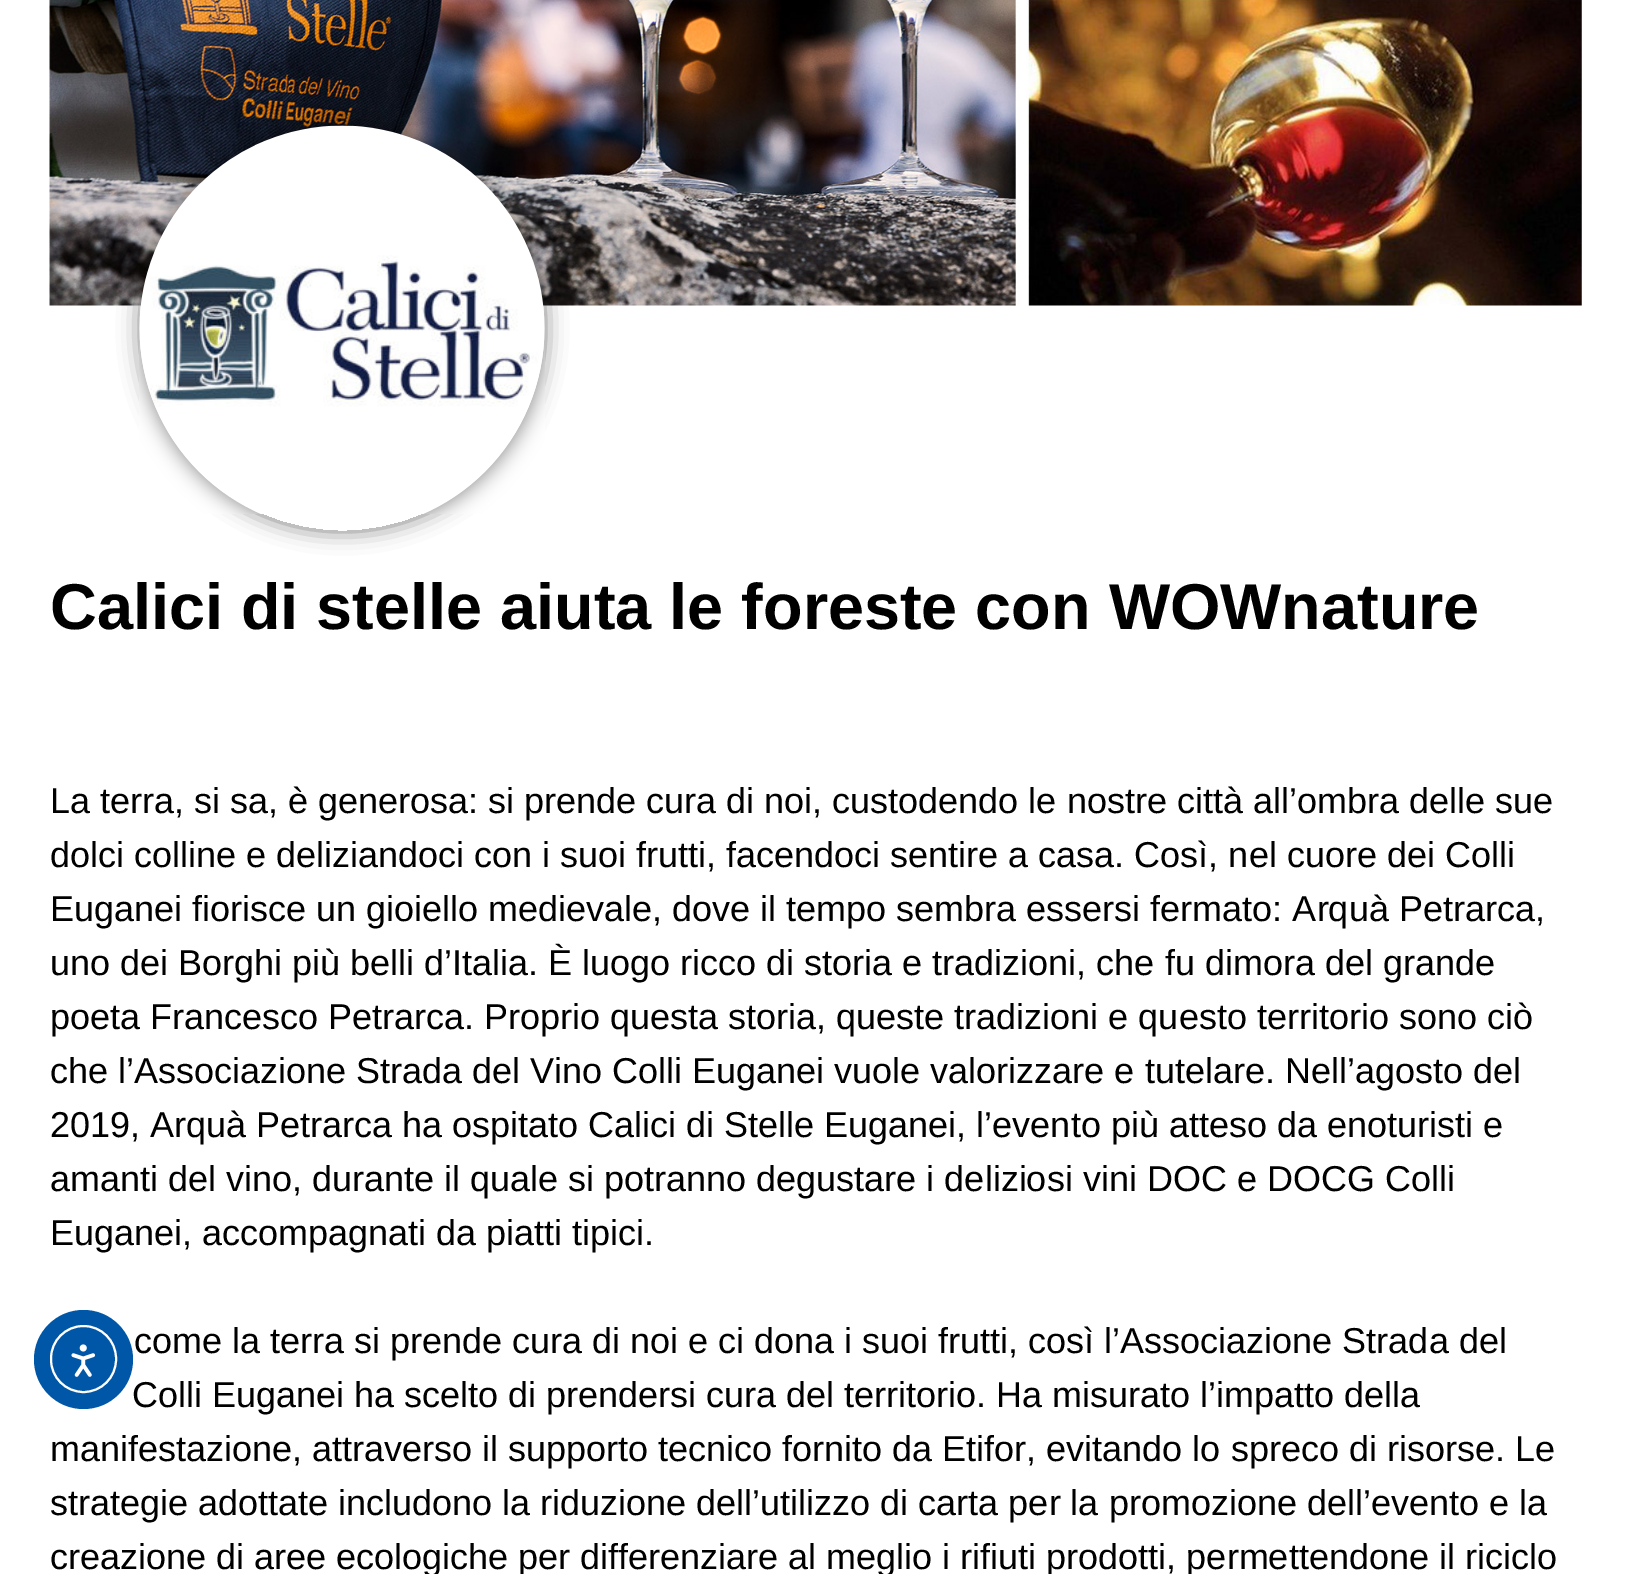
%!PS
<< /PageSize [1630 1574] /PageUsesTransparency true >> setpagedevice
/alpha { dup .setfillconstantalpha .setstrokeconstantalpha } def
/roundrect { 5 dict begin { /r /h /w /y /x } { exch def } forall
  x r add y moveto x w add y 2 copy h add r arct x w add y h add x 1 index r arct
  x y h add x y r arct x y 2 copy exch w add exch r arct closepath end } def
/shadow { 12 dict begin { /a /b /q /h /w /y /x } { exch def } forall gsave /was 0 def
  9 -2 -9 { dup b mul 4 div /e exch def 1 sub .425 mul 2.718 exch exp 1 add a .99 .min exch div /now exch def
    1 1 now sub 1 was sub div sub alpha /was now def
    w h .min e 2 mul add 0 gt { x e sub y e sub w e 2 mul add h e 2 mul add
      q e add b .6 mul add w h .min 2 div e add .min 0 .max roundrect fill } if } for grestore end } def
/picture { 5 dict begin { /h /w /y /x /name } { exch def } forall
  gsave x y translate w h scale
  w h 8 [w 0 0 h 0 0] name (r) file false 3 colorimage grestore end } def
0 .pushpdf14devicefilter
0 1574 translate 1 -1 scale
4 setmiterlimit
1 setgray
0 0 1630 1574 rectfill
(img1.rgb) 49 0 1533 306 picture
gsave
newpath 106 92 moveto 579 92 lineto 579 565 lineto 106 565 lineto closepath 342.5 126 moveto 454.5 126 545 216.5 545 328.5 curveto 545 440.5 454.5 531 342.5 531 curveto 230.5 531 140 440.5 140 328.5 curveto 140 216.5 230.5 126 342.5 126 curveto closepath eoclip newpath
0 setgray
140 126 405 405 202.5 11 0.5 shadow
grestore
(img2.rgb) 139 125 406 389 picture
/LiberationSans-Bold [64.8 0 0 -64.8 0 0] selectfont
0 setgray
50 629 moveto (Calici di stelle aiuta le foreste con WOWnature) show
/LiberationSans-Regular [36 0 0 -36 0 0] selectfont
50 813 moveto (La terra, si sa, è generosa: si prende cura di noi, custodendo le nostre città all’ombra delle sue) show
50 867 moveto (dolci colline e deliziandoci con i suoi frutti, facendoci sentire a casa. Così, nel cuore dei Colli) show
50 921 moveto (Euganei fiorisce un gioiello medievale, dove il tempo sembra essersi fermato: Arquà Petrarca,) show
50 975 moveto (uno dei Borghi più belli d’Italia. È luogo ricco di storia e tradizioni, che fu dimora del grande) show
50 1029 moveto (poeta Francesco Petrarca. Proprio questa storia, queste tradizioni e questo territorio sono ciò) show
50 1083 moveto (che l’Associazione Strada del Vino Colli Euganei vuole valorizzare e tutelare. Nell’agosto del) show
50 1137 moveto (2019, Arquà Petrarca ha ospitato Calici di Stelle Euganei, l’evento più atteso da enoturisti e) show
50 1191 moveto (amanti del vino, durante il quale si potranno degustare i deliziosi vini DOC e DOCG Colli) show
50 1245 moveto (Euganei, accompagnati da piatti tipici.) show
134 1353 moveto (come la terra si prende cura di noi e ci dona i suoi frutti, così l’Associazione Strada del) show
132 1407 moveto (Colli Euganei ha scelto di prendersi cura del territorio. Ha misurato l’impatto della) show
50 1461 moveto (manifestazione, attraverso il supporto tecnico fornito da Etifor, evitando lo spreco di risorse. Le) show
50 1515 moveto (strategie adottate includono la riduzione dell’utilizzo di carta per la promozione dell’evento e la) show
50 1569 moveto (creazione di aree ecologiche per differenziare al meglio i rifiuti prodotti, permettendone il riciclo) show
0 0.337 0.655 setrgbcolor
newpath 83.5 1359.5 49.5 0 360 arc closepath fill
1 setgray
2 setlinewidth
51 1326 65 66 32.5 roundrect stroke
(img3.rgb) 71 1344 24 33 picture
.poppdf14devicefilter showpage
